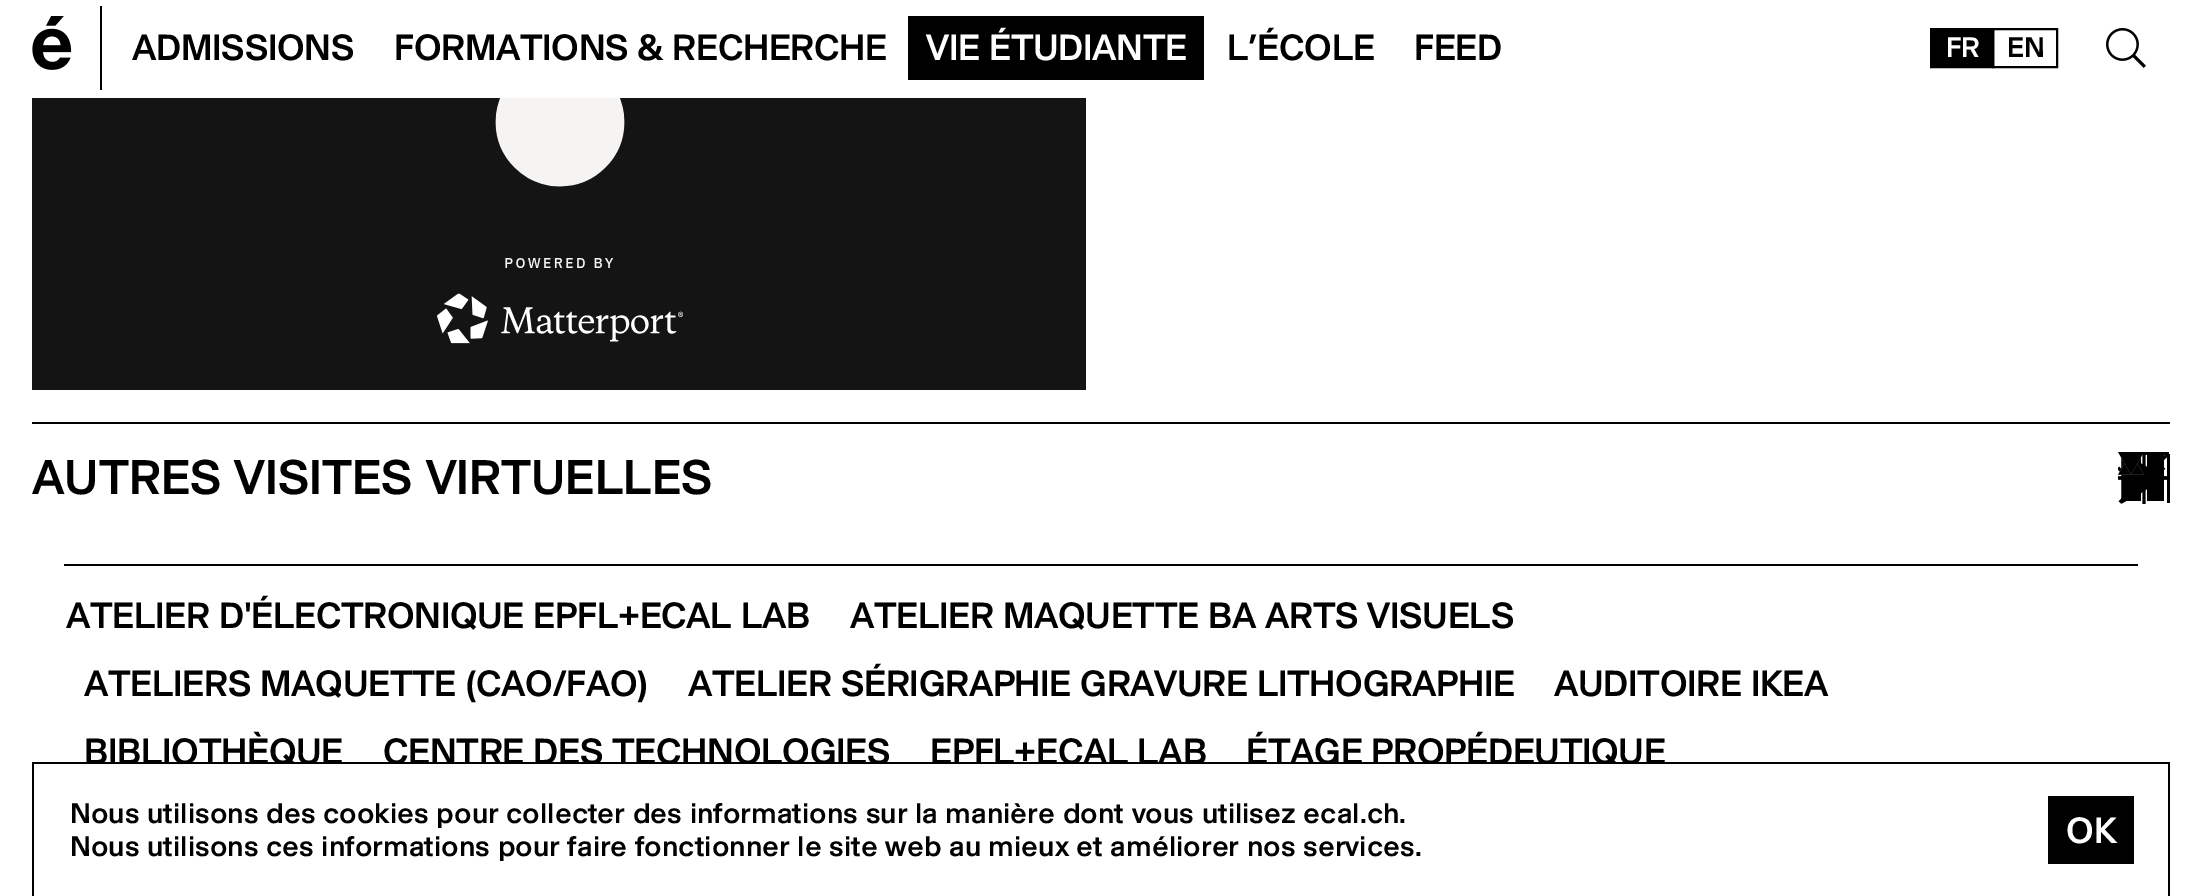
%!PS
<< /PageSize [2202 896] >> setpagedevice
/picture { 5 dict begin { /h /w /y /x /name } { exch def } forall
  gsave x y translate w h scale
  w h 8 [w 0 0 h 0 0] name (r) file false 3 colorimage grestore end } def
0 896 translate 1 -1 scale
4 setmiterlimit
1 setgray
0 0 2202 896 rectfill
(img1.rgb) 32 16 40 54 picture
0 setgray
100 6 2 84 rectfill
/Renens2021-Medium [36 0 0 -36 0 0] selectfont
132 60 moveto -0.35 0 (ADMISSIONS) ashow
394 60 moveto -0.35 0 (FORMATIONS & RECHERCHE) ashow
908 16 296 64 rectfill
1 setgray
926 60 moveto -0.35 0 (VIE ÉTUDIANTE) ashow
0 setgray
1227 60 moveto -0.35 0 (L’ÉCOLE) ashow
1414 60 moveto -0.35 0 (FEED) ashow
newpath 1931 29 moveto 1993 29 lineto 1993 67 lineto 1931 67 lineto closepath gsave fill grestore
2 setlinewidth
stroke
/Renens2021-Medium [28 0 0 -28 0 0] selectfont
1 setgray
1946 57 moveto -0.35 0 (FR) ashow
0 setgray
1993 29 64 38 rectstroke
2007 57 moveto -0.35 0 (EN) ashow
(img2.rgb) 2106 28 40 40 picture
(img3.rgb) 32 98 1054 292 picture
32 422 2138 2 rectfill
/Renens2021-Medium [48 0 0 -48 0 0] selectfont
32 494 moveto (AUTRES VISITES VIRTUELLES) show
(img4.rgb) 2118 452 52 52 picture
64 564 2074 2 rectfill
/Renens2021-Medium [36 0 0 -36 0 0] selectfont
66 628 moveto -0.35 0 (ATELIER D'ÉLECTRONIQUE EPFL+ECAL LAB) ashow
850 628 moveto -0.35 0 (ATELIER MAQUETTE BA ARTS VISUELS) ashow
84 696 moveto -0.35 0 (ATELIERS MAQUETTE \(CAO/FAO\)) ashow
688 696 moveto -0.35 0 (ATELIER SÉRIGRAPHIE GRAVURE LITHOGRAPHIE) ashow
1554 696 moveto -0.35 0 (AUDITOIRE IKEA) ashow
84 764 moveto -0.35 0 (BIBLIOTHÈQUE) ashow
383 764 moveto -0.35 0 (CENTRE DES TECHNOLOGIES) ashow
930 764 moveto -0.35 0 (EPFL+ECAL LAB) ashow
1246 764 moveto -0.35 0 (ÉTAGE PROPÉDEUTIQUE) ashow
1 setgray
182 764 1453 2 rectfill
0 setgray
32 762 2138 2 rectfill
2168 762 2 134 rectfill
32 762 2 134 rectfill
/Renens2021-Medium [28 0 0 -28 0 0] selectfont
70 823 moveto (Nous utilisons des cookies pour collecter des informations sur la manière dont vous utilisez ecal.ch.) show
2048 796 86 68 rectfill
/Renens2021-Medium [36 0 0 -36 0 0] selectfont
1 setgray
2066 843 moveto (OK) show
/Renens2021-Medium [28 0 0 -28 0 0] selectfont
0 setgray
70 856 moveto (Nous utilisons ces informations pour faire fonctionner le site web au mieux et améliorer nos services.) show
showpage
